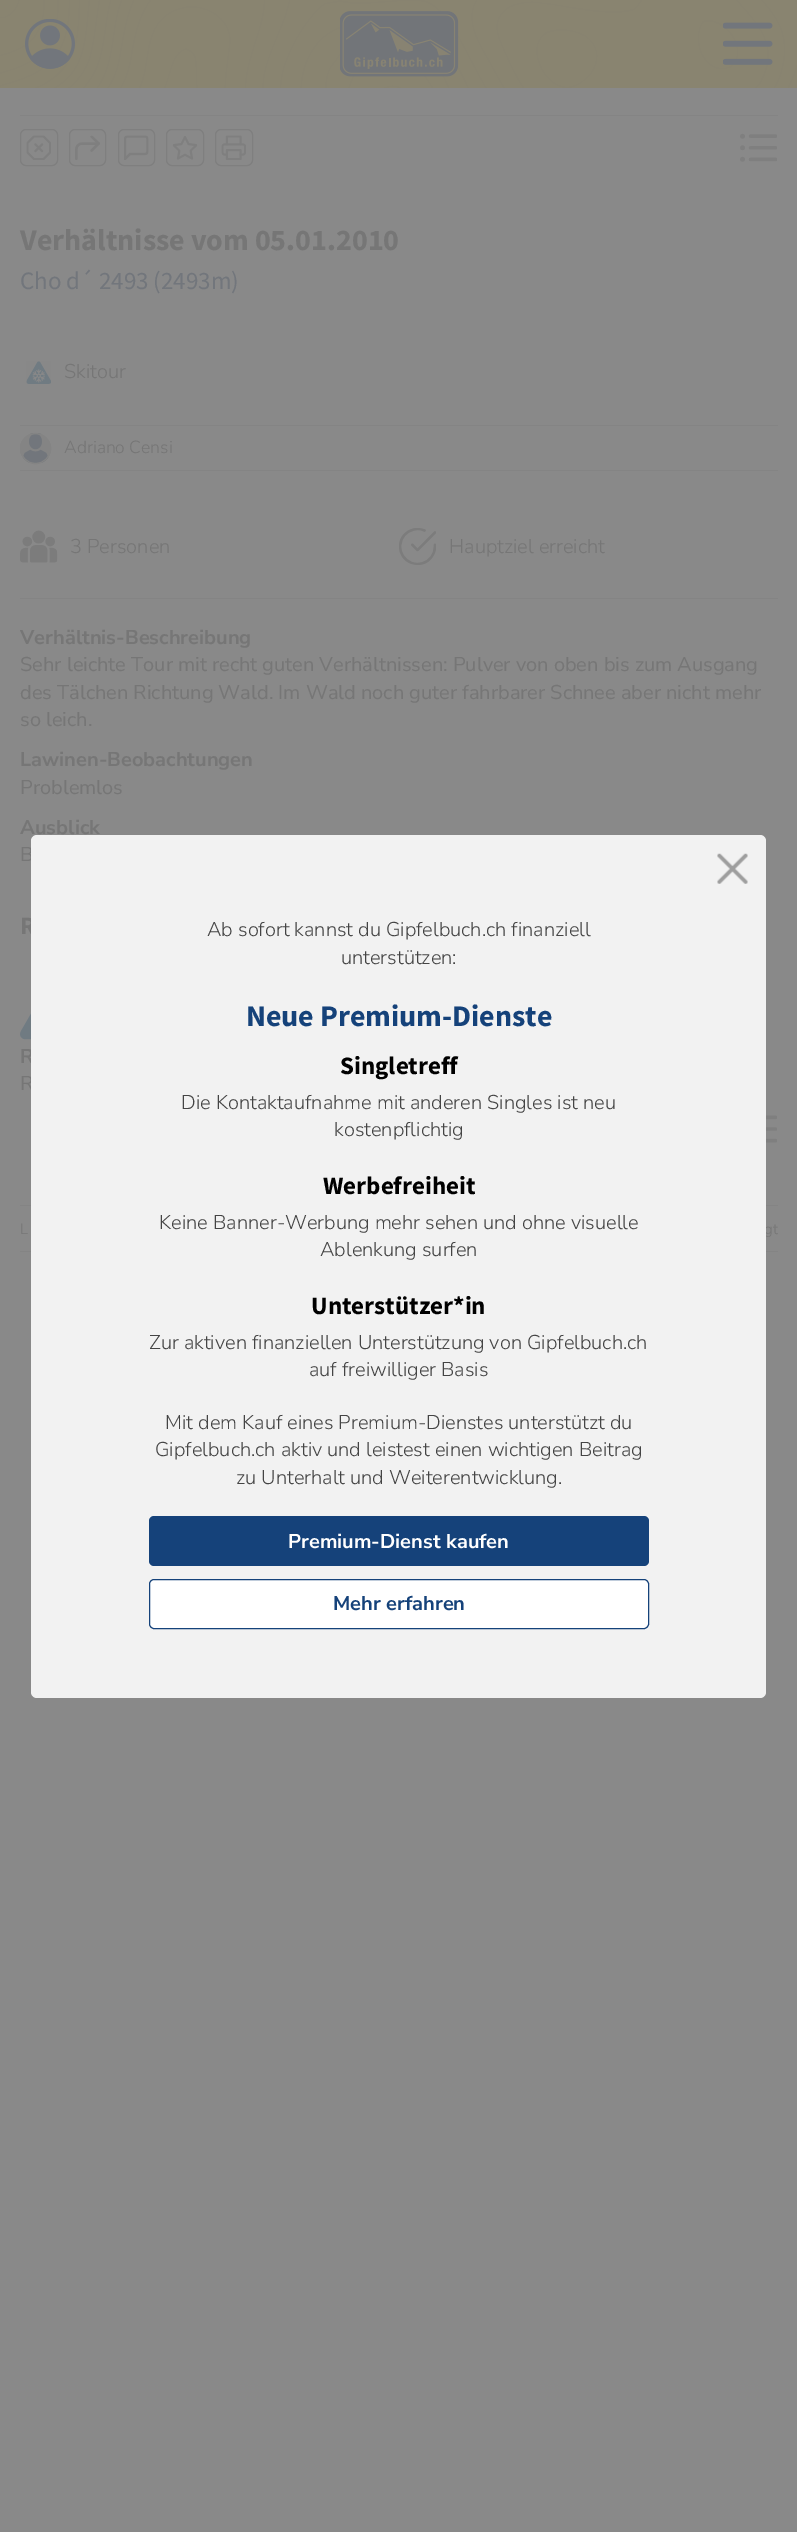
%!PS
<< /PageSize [797 2532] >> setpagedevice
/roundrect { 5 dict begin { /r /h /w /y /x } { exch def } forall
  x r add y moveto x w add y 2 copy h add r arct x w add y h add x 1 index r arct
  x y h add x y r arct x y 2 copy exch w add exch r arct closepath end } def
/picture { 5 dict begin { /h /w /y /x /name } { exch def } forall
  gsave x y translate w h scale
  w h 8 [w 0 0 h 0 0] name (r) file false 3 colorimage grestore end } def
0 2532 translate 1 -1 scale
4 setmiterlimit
0.537 setgray
0 0 797 2532 rectfill
0.537 0.518 0.439 setrgbcolor
0 0 797 88 rectfill
(img1.rgb) 0 0 797 88 picture
(img2.rgb) 25 19 50 50 picture
(img3.rgb) 340 11 119 66 picture
(img4.rgb) 723 22 50 43 picture
0.518 setgray
20 115 758 1 rectfill
0.498 setgray
20.5 129.5 37 36 5.5 roundrect stroke
(img5.rgb) 26 135 25 25 picture
69.5 129.5 36 36 5.5 roundrect stroke
(img6.rgb) 75 135 25 25 picture
118.5 129.5 36 36 5.5 roundrect stroke
(img7.rgb) 124 135 25 25 picture
166.5 129.5 37 36 5.5 roundrect stroke
(img8.rgb) 172 135 26 25 picture
215.5 129.5 37 36 5.5 roundrect stroke
(img9.rgb) 221 135 25 25 picture
(img10.rgb) 740 133 38 29 picture
/SourceSansPro-Bold [30 0 0 -30 0 0] selectfont
0.463 setgray
20 250 moveto (Verhältnisse vom 05.01.2010) show
/SourceSansPro-Regular [25 0 0 -25 0 0] selectfont
0.447 0.463 0.486 setrgbcolor
20 289 moveto (Cho d´ 2493 \(2493m\)) show
(img11.rgb) 26 361 25 23 picture
/NunitoSans-Light [20 0 0 -20 0 0] selectfont
0.463 setgray
64 378 moveto (Skitour) show
0.518 setgray
20 425 758 1 rectfill
20 470 758 1 rectfill
newpath 35.5 448.5 15.5 0 360 arc closepath fill
(img12.rgb) 22 432 27 32 picture
newpath 35.5 448.5 15 0 360 arc closepath stroke
/NunitoSans-Light [17.5 0 0 -17.5 0 0] selectfont
0.463 setgray
64 453 moveto (Adriano Censi) show
0.518 setgray
20 598 758 1 rectfill
(img13.rgb) 20 530 38 33 picture
/NunitoSans-Light [20 0 0 -20 0 0] selectfont
0.463 setgray
70 553 moveto (3 Personen) show
(img14.rgb) 399 528 37 37 picture
449 553 moveto (Hauptziel erreicht) show
/NunitoSans-Bold [20 0 0 -20 0 0] selectfont
20 644 moveto (Verhältnis-Beschreibung) show
/NunitoSans-Regular [20 0 0 -20 0 0] selectfont
20 671 moveto (Sehr leichte Tour mit recht guten Verhältnissen: Pulver von oben bis zum Ausgang) show
20 699 moveto (des Tälchen Richtung Wald. Im Wald noch guter fahrbarer Schnee aber nicht mehr) show
20 726 moveto (so leich.) show
/NunitoSans-Bold [20 0 0 -20 0 0] selectfont
20 766 moveto (Lawinen-Beobachtungen) show
/NunitoSans-Regular [20 0 0 -20 0 0] selectfont
20 794 moveto (Problemlos) show
/NunitoSans-Bold [20 0 0 -20 0 0] selectfont
20 834 moveto (Ausblick) show
/NunitoSans-Regular [20 0 0 -20 0 0] selectfont
20 861 moveto (B) show
/SourceSansPro-Bold [25 0 0 -25 0 0] selectfont
20 934 moveto (R) show
(img15.rgb) 20 1013 11 27 picture
/NunitoSans-Bold [20 0 0 -20 0 0] selectfont
20 1063 moveto (R) show
/NunitoSans-Regular [20 0 0 -20 0 0] selectfont
20 1090 moveto (R) show
(img16.rgb) 766 1115 12 28 picture
0.518 setgray
20 1205 758 1 rectfill
20 1251 758 1 rectfill
/NunitoSans-Light [15 0 0 -15 0 0] selectfont
0.463 setgray
20 1234 moveto (L) show
764 1234 moveto (gt) show
0.949 setgray
31 835 735 863 6 roundrect fill
(img17.rgb) 717 853 31 31 picture
/NunitoSans-Light [20 0 0 -20 0 0] selectfont
0.267 setgray
207 936 moveto (Ab sofort kannst du Gipfelbuch.ch finanziell) show
341 964 moveto (unterstützen:) show
/SourceSansPro-Bold [30 0 0 -30 0 0] selectfont
0.082 0.259 0.478 setrgbcolor
246 1026 moveto (Neue Premium-Dienste) show
/SourceSansPro-Bold [25 0 0 -25 0 0] selectfont
0 setgray
340 1074 moveto (Singletreff) show
/NunitoSans-Light [20 0 0 -20 0 0] selectfont
0.267 setgray
181 1109 moveto (Die Kontaktaufnahme mit anderen Singles ist neu) show
334 1136 moveto (kostenpflichtig) show
/SourceSansPro-Bold [25 0 0 -25 0 0] selectfont
0 setgray
323 1194 moveto (Werbefreiheit) show
/NunitoSans-Light [20 0 0 -20 0 0] selectfont
0.267 setgray
159 1229 moveto (Keine Banner-Werbung mehr sehen und ohne visuelle) show
320 1256 moveto (Ablenkung surfen) show
/SourceSansPro-Bold [25 0 0 -25 0 0] selectfont
0 setgray
311 1314 moveto (Unterstützer*in) show
/NunitoSans-Light [20 0 0 -20 0 0] selectfont
0.267 setgray
149 1349 moveto (Zur aktiven finanziellen Unterstützung von Gipfelbuch.ch) show
309 1376 moveto (auf freiwilliger Basis) show
165 1429 moveto (Mit dem Kauf eines Premium-Dienstes unterstützt du) show
155 1456 moveto (Gipfelbuch.ch aktiv und leistest einen wichtigen Beitrag) show
236 1484 moveto (zu Unterhalt und Weiterentwicklung.) show
0.082 0.259 0.478 setrgbcolor
149 1516 500 50 5 roundrect fill
/NunitoSans-Bold [20 0 0 -20 0 0] selectfont
1 setgray
288 1548 moveto (Premium-Dienst kaufen) show
149.5 1579.5 499 49 4.5 roundrect gsave fill grestore
0.082 0.259 0.478 setrgbcolor
stroke
333 1610 moveto (Mehr erfahren) show
showpage
